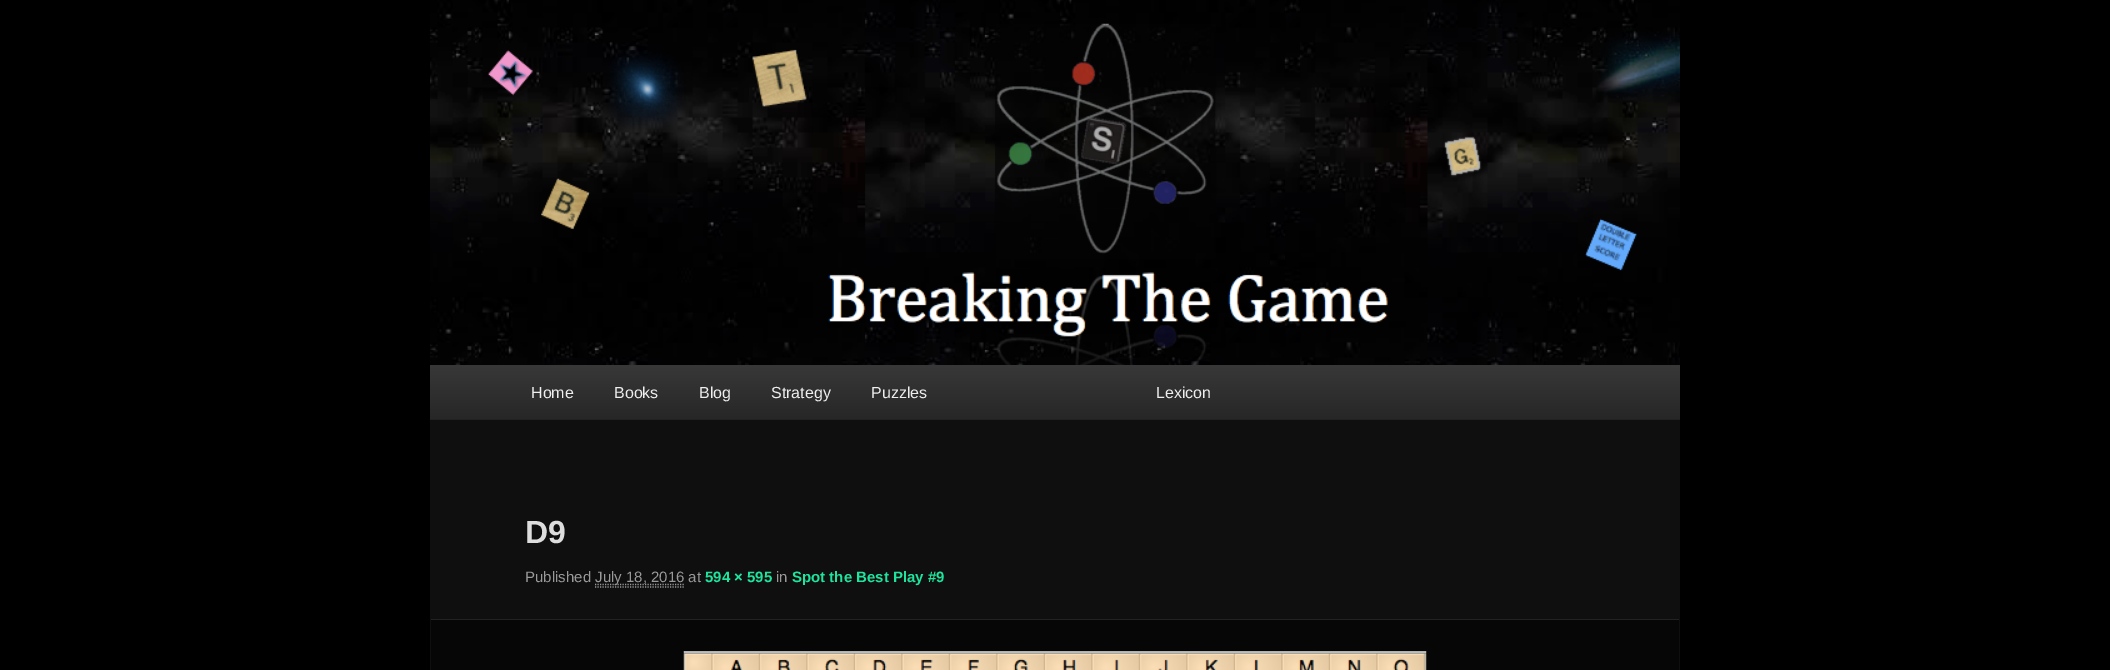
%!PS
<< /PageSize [2110 670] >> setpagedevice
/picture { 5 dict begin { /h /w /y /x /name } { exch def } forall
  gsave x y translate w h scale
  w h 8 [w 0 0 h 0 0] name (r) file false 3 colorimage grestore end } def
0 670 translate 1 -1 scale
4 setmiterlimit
0 setgray
0 0 2110 670 rectfill
0.059 setgray
430 420 1250 250 rectfill
(img1.rgb) 430 0 1250 365 picture
gsave newpath 430 365 moveto 1680 365 lineto 1680 419 lineto 430 419 lineto closepath clip newpath
<< /ShadingType 2 /ColorSpace /DeviceRGB /Coords [1055 365 1055 419] /Extend [true true] /Function << /FunctionType 2 /Domain [0 1] /C0 [0.22 0.22 0.22] /C1 [0.153 0.153 0.153] /N 1 >> >> shfill grestore
0.133 setgray
430 419 1250 1 rectfill
/LiberationSans-Regular [16 0 0 -16 0 0] selectfont
0.933 setgray
531 398 moveto (Home) show
614 398 moveto (Books) show
699 398 moveto (Blog) show
771 398 moveto (Strategy) show
871 398 moveto (Puzzles) show
1156 398 moveto (Lexicon) show
/LiberationSans-Bold [32 0 0 -32 0 0] selectfont
0.867 setgray
525 543 moveto (D9) show
/LiberationSans-Regular [15 0 0 -15 0 0] selectfont
0.6 setgray
525 582 moveto (Published) show
1.2 setlinewidth
[1.25 1.25] 0 setdash
newpath 595 584.5 moveto 684.5 584.5 lineto stroke
595 582 moveto (July 18, 2016 at) show
newpath 595 587 moveto 684 587 lineto stroke
/LiberationSans-Bold [15 0 0 -15 0 0] selectfont
0.122 0.894 0.62 setrgbcolor
705 582 moveto (594 × 595) show
/LiberationSans-Regular [15 0 0 -15 0 0] selectfont
0.6 setgray
776 582 moveto (in) show
/LiberationSans-Bold [15 0 0 -15 0 0] selectfont
0.122 0.894 0.62 setrgbcolor
792 582 moveto (Spot the Best Play #9) show
0.024 setgray
431 620 1248 50 rectfill
0.133 setgray
431 619 1248 1 rectfill
(img2.rgb) 683 651 744 19 picture
showpage
